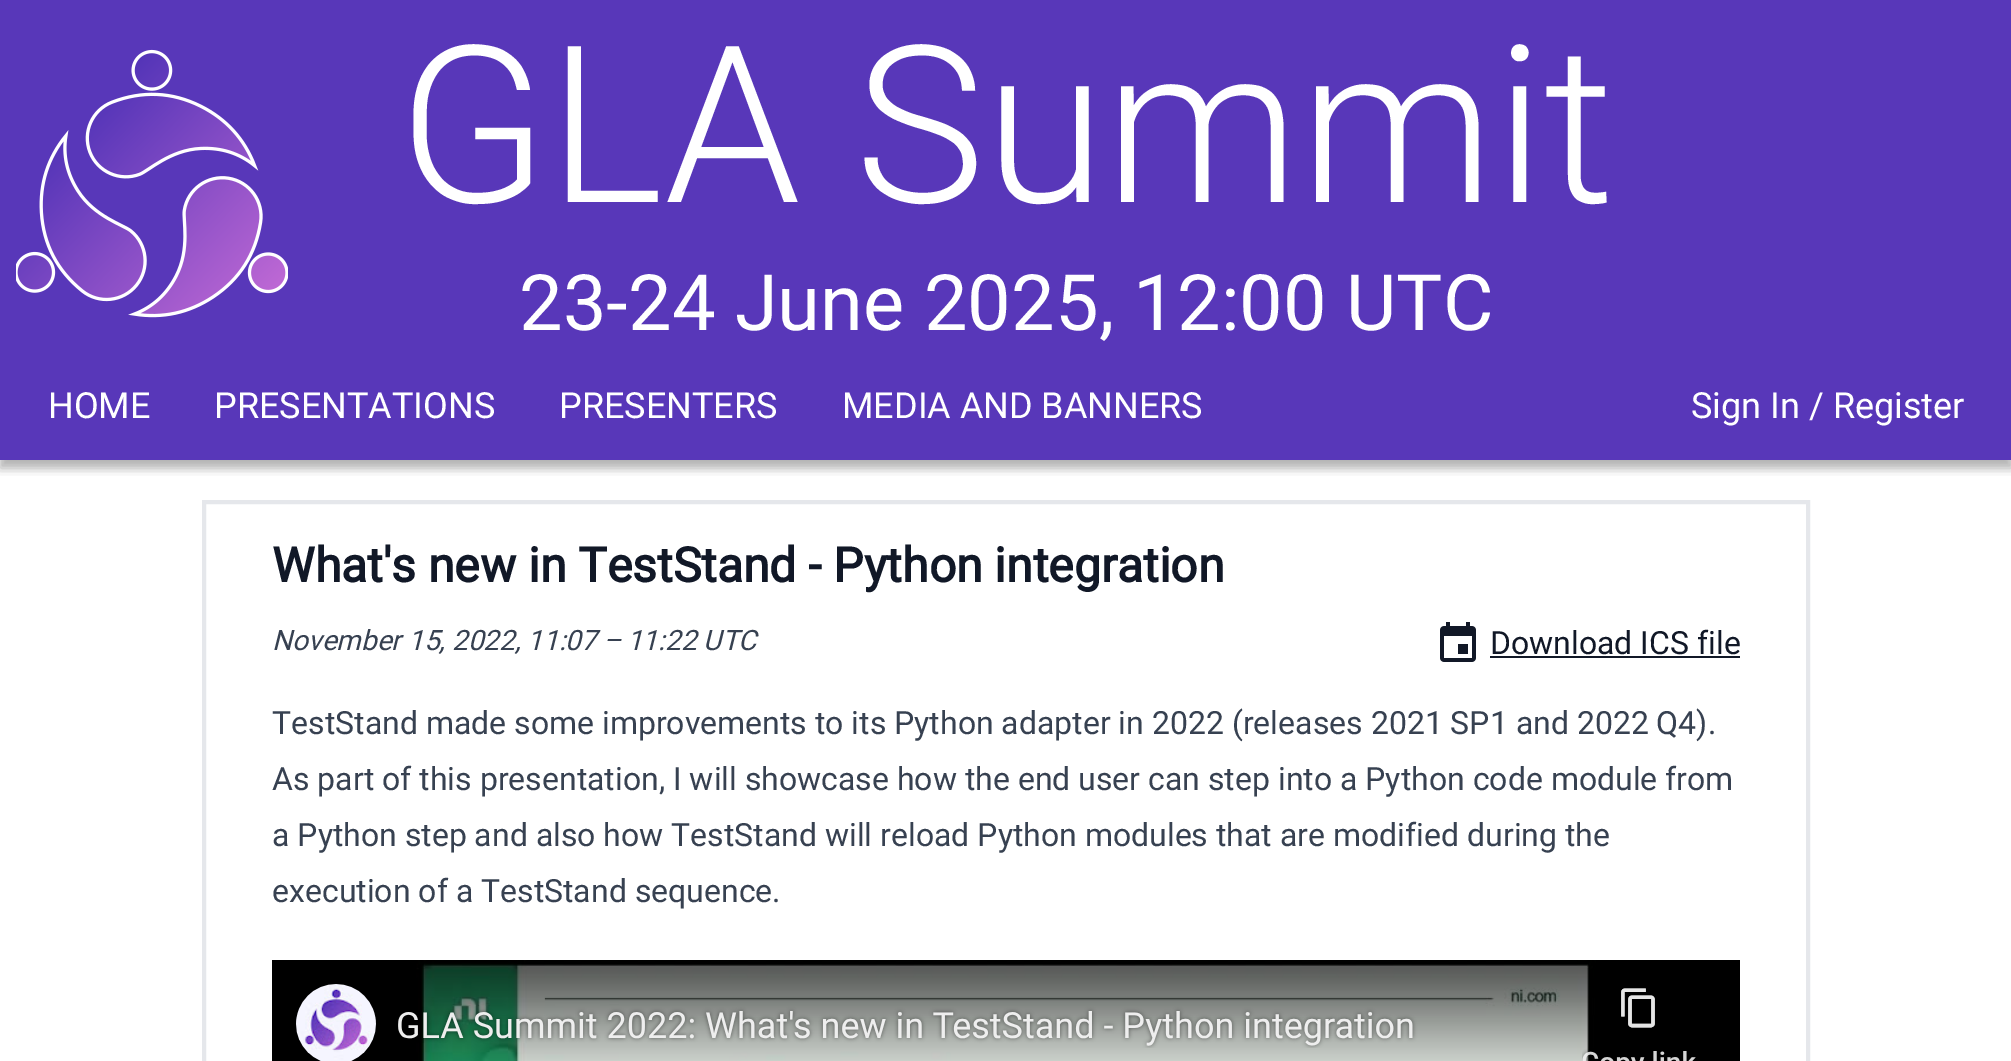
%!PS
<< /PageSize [2011 1061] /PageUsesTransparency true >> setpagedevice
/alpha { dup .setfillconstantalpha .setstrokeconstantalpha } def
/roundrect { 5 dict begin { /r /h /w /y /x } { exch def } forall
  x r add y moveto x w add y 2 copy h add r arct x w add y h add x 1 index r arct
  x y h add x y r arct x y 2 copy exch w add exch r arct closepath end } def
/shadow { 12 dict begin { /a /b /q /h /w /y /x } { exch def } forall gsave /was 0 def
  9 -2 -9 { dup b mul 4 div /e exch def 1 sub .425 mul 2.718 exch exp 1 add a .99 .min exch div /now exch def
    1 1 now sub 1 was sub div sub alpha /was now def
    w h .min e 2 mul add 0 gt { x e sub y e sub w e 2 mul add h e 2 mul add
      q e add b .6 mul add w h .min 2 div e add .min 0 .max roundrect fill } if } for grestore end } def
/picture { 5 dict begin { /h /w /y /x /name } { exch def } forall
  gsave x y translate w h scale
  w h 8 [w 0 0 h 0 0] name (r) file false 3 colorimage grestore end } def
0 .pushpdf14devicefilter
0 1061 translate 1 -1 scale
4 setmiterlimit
1 setgray
0 0 2011 1061 rectfill
0.345 0.216 0.725 setrgbcolor
0 0 2011 460 rectfill
(img1.rgb) 16 49 272 269 picture
/Roboto-Light [219.5 0 0 -219.5 0 0] selectfont
1 setgray
398 202 moveto (GLA Summit) show
/Roboto-Regular [77.75 0 0 -77.75 0 0] selectfont
519 330 moveto (23-24 June 2025, 12:00 UTC) show
gsave
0 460 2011 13 rectclip
0 setgray
0 360 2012 108 0 5 0.14 shadow
grestore
gsave
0 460 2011 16 rectclip
0 setgray
0 360 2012 108 0 6 0.2 shadow
grestore
/Roboto-Regular [36 0 0 -36 0 0] selectfont
48 418 moveto (HOME) show
214 418 moveto (PRESENTATIONS) show
559 418 moveto (PRESENTERS) show
842 418 moveto (MEDIA AND BANNERS) show
1691 418 moveto (Sign In / Register) show
0.898 0.906 0.922 setrgbcolor
4 setlinewidth
204 502 1604 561 rectstroke
/Roboto-Bold [48 0 0 -48 0 0] selectfont
0.067 0.094 0.153 setrgbcolor
272 582 moveto (What's new in TestStand - Python integration) show
/Roboto-Italic [28 0 0 -28 0 0] selectfont
0.216 0.255 0.318 setrgbcolor
272 650 moveto (November 15, 2022, 11:07 – 11:22 UTC) show
(img2.rgb) 1440 622 36 40 picture
/Roboto-Regular [32 0 0 -32 0 0] selectfont
0.067 0.094 0.153 setrgbcolor
1490 654 moveto (Download ICS file) show
1490 656 250 2 rectfill
0.216 0.255 0.318 setrgbcolor
272 734 moveto (TestStand made some improvements to its Python adapter in 2022 \(releases 2021 SP1 and 2022 Q4\).) show
272 790 moveto (As part of this presentation, I will showcase how the end user can step into a Python code module from) show
272 846 moveto (a Python step and also how TestStand will reload Python modules that are modified during the) show
272 902 moveto (execution of a TestStand sequence.) show
(img3.rgb) 272 960 1468 101 picture
.poppdf14devicefilter showpage
